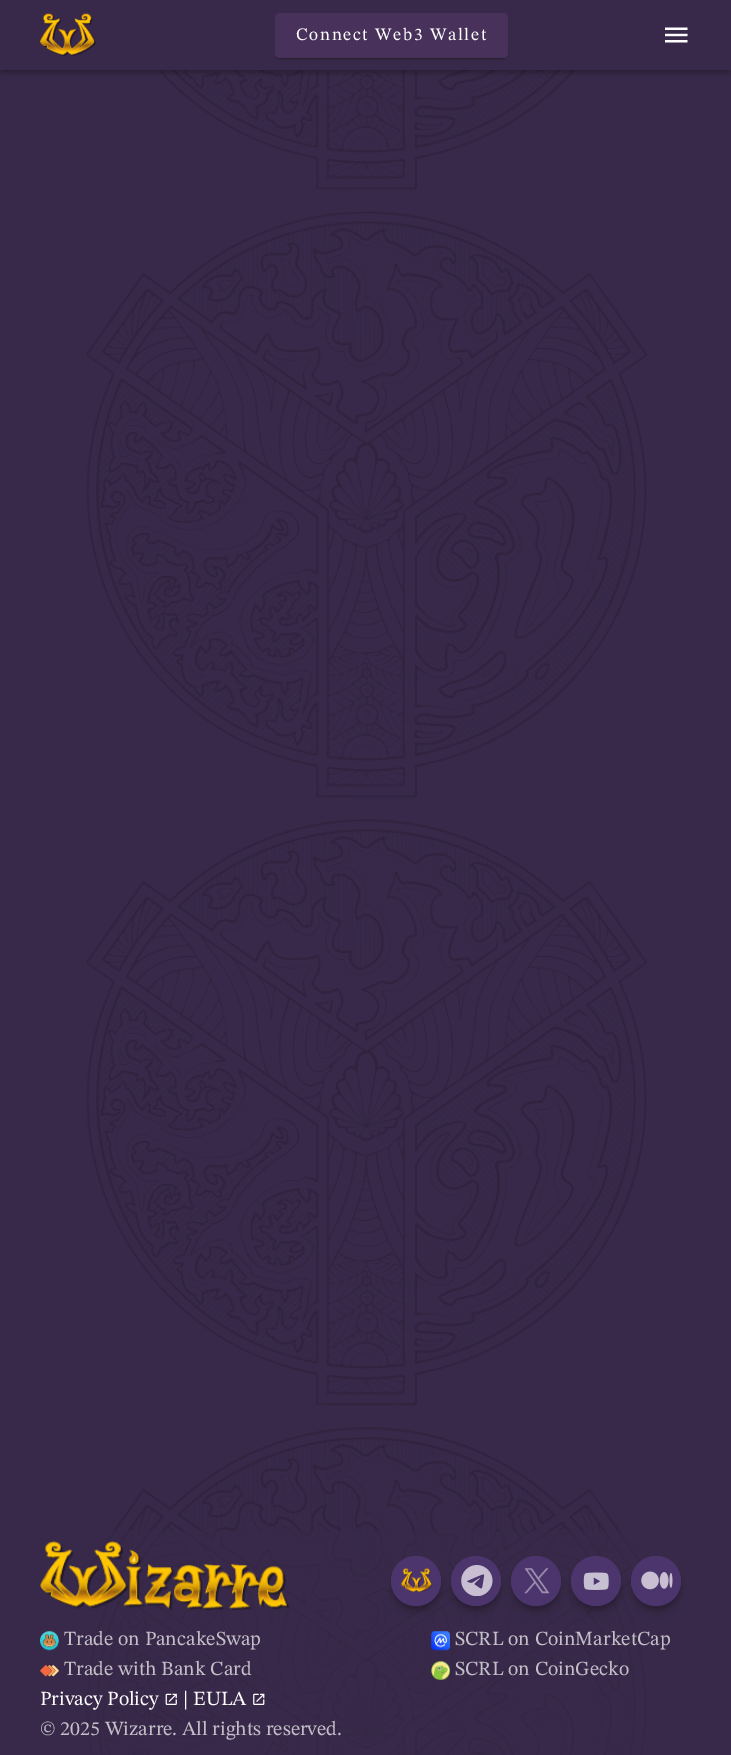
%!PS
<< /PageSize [731 1755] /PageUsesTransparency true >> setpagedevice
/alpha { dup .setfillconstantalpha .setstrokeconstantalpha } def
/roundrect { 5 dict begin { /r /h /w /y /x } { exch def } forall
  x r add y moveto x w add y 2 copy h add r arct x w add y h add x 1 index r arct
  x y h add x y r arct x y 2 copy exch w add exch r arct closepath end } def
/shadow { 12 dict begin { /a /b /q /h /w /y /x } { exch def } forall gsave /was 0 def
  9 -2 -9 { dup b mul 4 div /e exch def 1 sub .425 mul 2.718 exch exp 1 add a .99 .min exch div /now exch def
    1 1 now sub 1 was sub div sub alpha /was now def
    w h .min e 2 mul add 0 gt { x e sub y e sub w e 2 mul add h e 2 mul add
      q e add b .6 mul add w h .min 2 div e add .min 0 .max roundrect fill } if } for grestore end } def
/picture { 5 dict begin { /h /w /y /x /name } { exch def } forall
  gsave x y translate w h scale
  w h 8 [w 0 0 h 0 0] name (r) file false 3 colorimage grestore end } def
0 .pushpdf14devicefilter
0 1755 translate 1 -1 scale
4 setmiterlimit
0.22 0.161 0.29 setrgbcolor
0 0 731 1755 rectfill
(img1.rgb) 86 70 561 1685 picture
0 setgray
0 5 731 70 0 3 0.14 shadow
1 4 729 67 0 2.5 0.2 shadow
0.22 0.161 0.29 setrgbcolor
0 1 731 69 rectfill
(img2.rgb) 40 13 56 43 picture
0 setgray
275 15 233 45 5 1 0.14 shadow
278 19 227 40 2.5 0.5 0.2 shadow
0.282 0.196 0.357 setrgbcolor
275 13 233 45 5 roundrect fill
/STIXTwoText-Regular [17.5 0 0 -17.5 0 0] selectfont
1 setgray
296 40 moveto 1.6 0 (Connect Web3 Wallet) ashow
(img3.rgb) 665 27 23 16 picture
0.5 alpha
0.22 0.161 0.29 setrgbcolor
86 1531 561 224 rectfill
1 alpha
(img4.rgb) 40 1541 249 70 picture
(img12.rgb) 431 1631 19 20 picture
0 setgray
391 1564 50 50 25 6 0.14 shadow
393 1561 47 48 23.5 3 0.2 shadow
0.298 0.208 0.427 setrgbcolor
newpath 416 1581 25 0 360 arc closepath fill
(img5.rgb) 401 1568 32 25 picture
0 setgray
451 1564 50 50 25 6 0.14 shadow
453 1561 47 48 23.5 3 0.2 shadow
0.298 0.208 0.427 setrgbcolor
newpath 476 1581 25 0 360 arc closepath fill
(img6.rgb) 461 1565 32 31 picture
0 setgray
511 1564 50 50 25 6 0.14 shadow
513 1561 47 48 23.5 3 0.2 shadow
0.298 0.208 0.427 setrgbcolor
newpath 536 1581 25 0 360 arc closepath fill
(img7.rgb) 524 1568 26 26 picture
0 setgray
571 1564 50 50 25 6 0.14 shadow
573 1561 47 48 23.5 3 0.2 shadow
0.298 0.208 0.427 setrgbcolor
newpath 596 1581 25 0 360 arc closepath fill
(img8.rgb) 583 1572 26 18 picture
0 setgray
631 1564 50 50 25 6 0.14 shadow
633 1561 47 48 23.5 3 0.2 shadow
0.298 0.208 0.427 setrgbcolor
newpath 656 1581 25 0 360 arc closepath fill
(img9.rgb) 641 1571 32 19 picture
(img10.rgb) 40 1631 19 20 picture
/STIXTwoText-Regular [20 0 0 -20 0 0] selectfont
0.765 0.749 0.784 setrgbcolor
64 1645 moveto (Trade on PancakeSwap) show
(img11.rgb) 40 1665 19 12 picture
64 1675 moveto (Trade with Bank Card) show
455 1645 moveto (SCRL on CoinMarketCap) show
(img13.rgb) 431 1661 19 19 picture
455 1675 moveto (SCRL on CoinGecko) show
1 setgray
40 1705 moveto (Privacy Policy) show
(img14.rgb) 165 1693 12 12 picture
183 1705 moveto (| EULA) show
(img15.rgb) 253 1693 12 12 picture
0.765 0.749 0.784 setrgbcolor
40 1735 moveto (© 2025 Wizarre. All rights reserved.) show
.poppdf14devicefilter showpage
